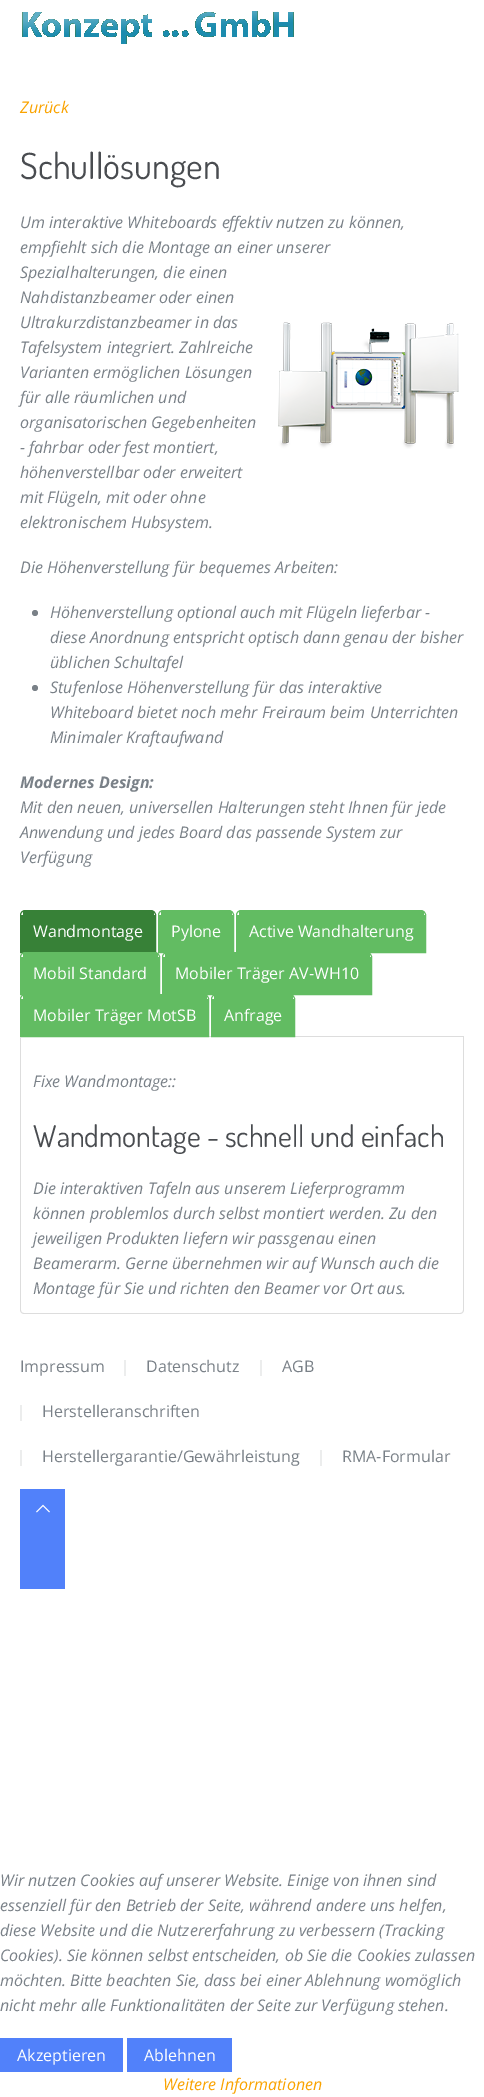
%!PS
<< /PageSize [484 2097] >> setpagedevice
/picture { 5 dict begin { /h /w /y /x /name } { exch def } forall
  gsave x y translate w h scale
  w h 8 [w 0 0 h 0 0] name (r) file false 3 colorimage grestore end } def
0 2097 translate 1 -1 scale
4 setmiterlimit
1 setgray
0 0 484 2097 rectfill
(img1.rgb) 22 11 272 33 picture
/OpenSans-Italic [16 0 0 -16 0 0] selectfont
0.98 0.639 0 setrgbcolor
20 113 moveto (Zurück) show
/Dosis-Regular [36 0 0 -36 0 0] selectfont
0.286 0.298 0.314 setrgbcolor
20 179 moveto (Schullösungen) show
/OpenSans-Italic [16 0 0 -16 0 0] selectfont
0.478 0.506 0.533 setrgbcolor
20 228 moveto (Um interaktive Whiteboards effektiv nutzen zu können,) show
20 253 moveto (empfiehlt sich die Montage an einer unserer) show
20 278 moveto (Spezialhalterungen, die einen) show
20 303 moveto (Nahdistanzbeamer oder einen) show
20 328 moveto (Ultrakurzdistanzbeamer in das) show
(img2.rgb) 278 322 181 127 picture
20 353 moveto (Tafelsystem integriert. Zahlreiche) show
20 378 moveto (Varianten ermöglichen Lösungen) show
20 403 moveto (für alle räumlichen und) show
20 428 moveto (organisatorischen Gegebenheiten) show
20 453 moveto (- fahrbar oder fest montiert,) show
20 478 moveto (höhenverstellbar oder erweitert) show
20 503 moveto (mit Flügeln, mit oder ohne) show
20 528 moveto (elektronischem Hubsystem.) show
20 573 moveto (Die Höhenverstellung für bequemes Arbeiten:) show
newpath 35 613 3 0 360 arc closepath fill
50 618 moveto (Höhenverstellung optional auch mit Flügeln lieferbar -) show
50 643 moveto (diese Anordnung entspricht optisch dann genau der bisher) show
50 668 moveto (üblichen Schultafel) show
newpath 35 688 3 0 360 arc closepath fill
50 693 moveto (Stufenlose Höhenverstellung für das interaktive) show
50 718 moveto (Whiteboard bietet noch mehr Freiraum beim Unterrichten) show
50 743 moveto (Minimaler Kraftaufwand) show
/OpenSans-BoldItalic [16 0 0 -16 0 0] selectfont
20 788 moveto (Modernes Design:) show
/OpenSans-Italic [16 0 0 -16 0 0] selectfont
20 813 moveto (Mit den neuen, universellen Halterungen steht Ihnen für jede) show
20 838 moveto (Anwendung und jedes Board das passende System zur) show
20 863 moveto (Verfügung) show
0.867 setgray
209 1036 255 1 rectfill
0.216 0.506 0.216 setrgbcolor
newpath 25 915 moveto 155 915 lineto 155 952 lineto 21 952 lineto 21 915 lineto closepath fill
newpath 25 910.5 moveto 151 910.5 lineto 153.5 910.5 155.5 912.5 155.5 915 curveto 155.5 952.5 lineto 20.5 952.5 lineto 20.5 915 lineto 20.5 912.5 22.5 910.5 25 910.5 curveto closepath stroke
23 911 131 4 rectfill
/OpenSans-Regular [16 0 0 -16 0 0] selectfont
1 setgray
33 937 moveto (Wandmontage) show
0.384 0.737 0.384 setrgbcolor
newpath 163 915 moveto 233 915 lineto 233 952 lineto 159 952 lineto 159 915 lineto closepath fill
newpath 163 910.5 moveto 229 910.5 lineto 231.5 910.5 233.5 912.5 233.5 915 curveto 233.5 952.5 lineto 158.5 952.5 lineto 158.5 915 lineto 158.5 912.5 160.5 910.5 163 910.5 curveto closepath stroke
161 911 71 4 rectfill
1 setgray
171 937 moveto (Pylone) show
0.384 0.737 0.384 setrgbcolor
newpath 241 915 moveto 425 915 lineto 425 952 lineto 237 952 lineto 237 915 lineto closepath fill
newpath 241 910.5 moveto 421 910.5 lineto 423.5 910.5 425.5 912.5 425.5 915 curveto 425.5 952.5 lineto 236.5 952.5 lineto 236.5 915 lineto 236.5 912.5 238.5 910.5 241 910.5 curveto closepath stroke
239 911 185 4 rectfill
1 setgray
249 937 moveto (Active Wandhalterung) show
0.384 0.737 0.384 setrgbcolor
newpath 25 957 moveto 159 957 lineto 159 994 lineto 21 994 lineto 21 957 lineto closepath fill
newpath 25 952.5 moveto 155 952.5 lineto 157.5 952.5 159.5 954.5 159.5 957 curveto 159.5 994.5 lineto 20.5 994.5 lineto 20.5 957 lineto 20.5 954.5 22.5 952.5 25 952.5 curveto closepath stroke
23 953 135 4 rectfill
1 setgray
33 979 moveto (Mobil Standard) show
0.384 0.737 0.384 setrgbcolor
newpath 167 957 moveto 371 957 lineto 371 994 lineto 163 994 lineto 163 957 lineto closepath fill
newpath 167 952.5 moveto 367 952.5 lineto 369.5 952.5 371.5 954.5 371.5 957 curveto 371.5 994.5 lineto 162.5 994.5 lineto 162.5 957 lineto 162.5 954.5 164.5 952.5 167 952.5 curveto closepath stroke
165 953 205 4 rectfill
1 setgray
175 979 moveto (Mobiler Träger AV-WH10) show
0.384 0.737 0.384 setrgbcolor
newpath 25 999 moveto 208 999 lineto 208 1036 lineto 21 1036 lineto 21 999 lineto closepath fill
newpath 25 994.5 moveto 204 994.5 lineto 206.5 994.5 208.5 996.5 208.5 999 curveto 208.5 1036.5 lineto 20.5 1036.5 lineto 20.5 999 lineto 20.5 996.5 22.5 994.5 25 994.5 curveto closepath stroke
23 995 184 4 rectfill
1 setgray
33 1021 moveto (Mobiler Träger MotSB) show
0.384 0.737 0.384 setrgbcolor
newpath 216 999 moveto 294 999 lineto 294 1036 lineto 212 1036 lineto 212 999 lineto closepath fill
newpath 216 994.5 moveto 290 994.5 lineto 292.5 994.5 294.5 996.5 294.5 999 curveto 294.5 1036.5 lineto 211.5 1036.5 lineto 211.5 999 lineto 211.5 996.5 213.5 994.5 216 994.5 curveto closepath stroke
214 995 79 4 rectfill
1 setgray
224 1021 moveto (Anfrage) show
0.867 setgray
newpath 20 1037 moveto 464 1037 lineto 464 1310 lineto 464 1312 462 1314 460 1314 curveto 24 1314 lineto 22 1314 20 1312 20 1310 curveto closepath 21 1037 moveto 463 1037 lineto 463 1310 lineto 463 1312 462 1313 460 1313 curveto 24 1313 lineto 22 1313 21 1312 21 1310 curveto closepath eofill
/OpenSans-Italic [16 0 0 -16 0 0] selectfont
0.478 0.506 0.533 setrgbcolor
33 1087 moveto (Fixe Wandmontage::) show
/Dosis-Regular [30 0 0 -30 0 0] selectfont
0.286 0.298 0.314 setrgbcolor
33 1147 moveto (Wandmontage - schnell und einfach) show
/OpenSans-Italic [16 0 0 -16 0 0] selectfont
0.478 0.506 0.533 setrgbcolor
33 1194 moveto (Die interaktiven Tafeln aus unserem Lieferprogramm) show
33 1219 moveto (können problemlos durch selbst montiert werden. Zu den) show
33 1244 moveto (jeweiligen Produkten liefern wir passgenau einen) show
33 1269 moveto (Beamerarm. Gerne übernehmen wir auf Wunsch auch die) show
33 1294 moveto (Montage für Sie und richten den Beamer vor Ort aus.) show
/OpenSans-Regular [16 0 0 -16 0 0] selectfont
20 1372 moveto (Impressum) show
0.925 0.929 0.929 setrgbcolor
124 1360 2 16 rectfill
0.478 0.506 0.533 setrgbcolor
146 1372 moveto (Datenschutz) show
0.925 0.929 0.929 setrgbcolor
260 1360 2 16 rectfill
0.478 0.506 0.533 setrgbcolor
282 1372 moveto (AGB) show
0.925 0.929 0.929 setrgbcolor
20 1405 2 16 rectfill
0.478 0.506 0.533 setrgbcolor
42 1417 moveto (Herstelleranschriften) show
0.925 0.929 0.929 setrgbcolor
20 1450 2 16 rectfill
0.478 0.506 0.533 setrgbcolor
42 1462 moveto (Herstellergarantie/Gewährleistung) show
0.925 0.929 0.929 setrgbcolor
320 1450 2 16 rectfill
0.478 0.506 0.533 setrgbcolor
342 1462 moveto (RMA-Formular) show
0.318 0.506 0.98 setrgbcolor
20 1489 45 100 rectfill
1 setgray
newpath 36.5 1512 moveto 43 1505.5 lineto 49.5 1512 lineto stroke
/OpenSans-Italic [16 0 0 -16 0 0] selectfont
0.478 0.506 0.533 setrgbcolor
0 1886 moveto (Wir nutzen Cookies auf unserer Website. Einige von ihnen sind) show
0 1911 moveto (essenziell für den Betrieb der Seite, während andere uns helfen,) show
0 1936 moveto (diese Website und die Nutzererfahrung zu verbessern \(Tracking) show
0 1961 moveto (Cookies\). Sie können selbst entscheiden, ob Sie die Cookies zulassen) show
0 1986 moveto (möchten. Bitte beachten Sie, dass bei einer Ablehnung womöglich) show
0 2011 moveto (nicht mehr alle Funktionalitäten der Seite zur Verfügung stehen.) show
0.318 0.506 0.98 setrgbcolor
0 2038 123 34 rectfill
/OpenSans-Regular [16 0 0 -16 0 0] selectfont
1 setgray
17 2061 moveto (Akzeptieren) show
0.318 0.506 0.98 setrgbcolor
127 2038 105 34 rectfill
1 setgray
144 2061 moveto (Ablehnen) show
/OpenSans-Italic [16 0 0 -16 0 0] selectfont
0.98 0.639 0 setrgbcolor
163 2090 moveto (Weitere Informationen) show
showpage
